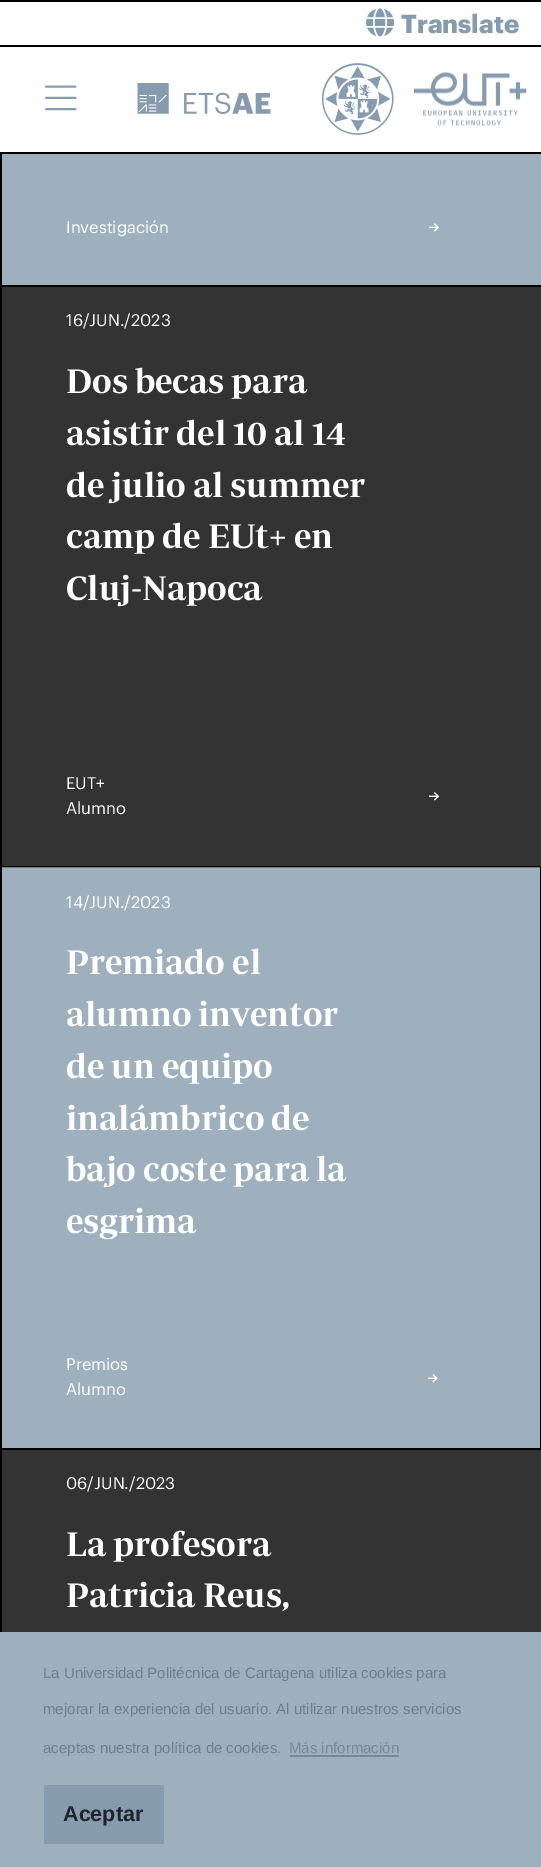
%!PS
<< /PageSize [541 1867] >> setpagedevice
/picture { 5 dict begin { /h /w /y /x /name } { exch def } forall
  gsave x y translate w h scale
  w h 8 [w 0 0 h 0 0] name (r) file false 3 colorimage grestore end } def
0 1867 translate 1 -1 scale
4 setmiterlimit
0 setgray
0 0 541 1867 rectfill
1 setgray
0 2 541 43 rectfill
(img1.rgb) 366 8 29 29 picture
/Graphik-Bold [25.5 0 0 -25.5 0 0] selectfont
0.525 0.612 0.682 setrgbcolor
401 33 moveto (Translate) show
1 setgray
0 47 541 105 rectfill
(img2.rgb) 45 85 32 26 picture
(img3.rgb) 137 83 134 31 picture
(img4.rgb) 321 63 73 72 picture
(img5.rgb) 414 72 113 54 picture
0.62 0.69 0.745 setrgbcolor
2 154 539 131 rectfill
/Graphik-Regular [16.5 0 0 -16.5 0 0] selectfont
1 setgray
66 233 moveto (Investigación) show
(img6.rgb) 429 223 11 9 picture
0.2 setgray
2 287 539 579 rectfill
1 setgray
66 326 moveto (16/JUN./2023) show
/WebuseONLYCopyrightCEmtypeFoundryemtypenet-SemiBold [34.5 0 0 -34.5 0 0] selectfont
66 393 moveto (Dos becas para) show
66 445 moveto (asistir del 10 al 14) show
66 497 moveto (de julio al summer) show
66 548 moveto (camp de EUt+ en) show
66 600 moveto (Cluj-Napoca) show
/Graphik-Regular [16.5 0 0 -16.5 0 0] selectfont
66 789 moveto (EUT+) show
66 814 moveto (Alumno) show
(img7.rgb) 429 792 11 9 picture
0.62 0.69 0.745 setrgbcolor
2 868 538 580 rectfill
0.42 0.49 0.545 setrgbcolor
2 867 538 1 rectfill
1 setgray
66 908 moveto (14/JUN./2023) show
/WebuseONLYCopyrightCEmtypeFoundryemtypenet-SemiBold [34.5 0 0 -34.5 0 0] selectfont
66 974 moveto (Premiado el) show
66 1026 moveto (alumno inventor) show
66 1078 moveto (de un equipo) show
66 1130 moveto (inalámbrico de) show
66 1181 moveto (bajo coste para la) show
66 1233 moveto (esgrima) show
/Graphik-Regular [16.5 0 0 -16.5 0 0] selectfont
66 1370 moveto (Premios) show
66 1395 moveto (Alumno) show
(img8.rgb) 428 1374 10 9 picture
0.2 setgray
2 1450 539 182 rectfill
1 setgray
66 1489 moveto (06/JUN./2023) show
/WebuseONLYCopyrightCEmtypeFoundryemtypenet-SemiBold [34.5 0 0 -34.5 0 0] selectfont
66 1556 moveto (La profesora) show
66 1607 moveto (Patricia Reus,) show
0.62 0.69 0.745 setrgbcolor
0 1632 541 235 rectfill
/LiberationSans-Regular [15 0 0 -15 0 0] selectfont
0.424 0.498 0.569 setrgbcolor
43 1678 moveto (La Universidad Politécnica de Cartagena utiliza cookies para) show
43 1714 moveto (mejorar la experiencia del usuario. Al utilizar nuestros servicios) show
43 1753 moveto (aceptas nuestra política de cookies.) show
0.463 0.537 0.604 setrgbcolor
289 1753 moveto (Más información) show
290 1755 109 2 rectfill
0.525 0.612 0.682 setrgbcolor
44 1785 120 59 rectfill
/LiberationSans-Bold [21.5 0 0 -21.5 0 0] selectfont
0.129 0.145 0.161 setrgbcolor
63 1821 moveto (Aceptar) show
showpage
